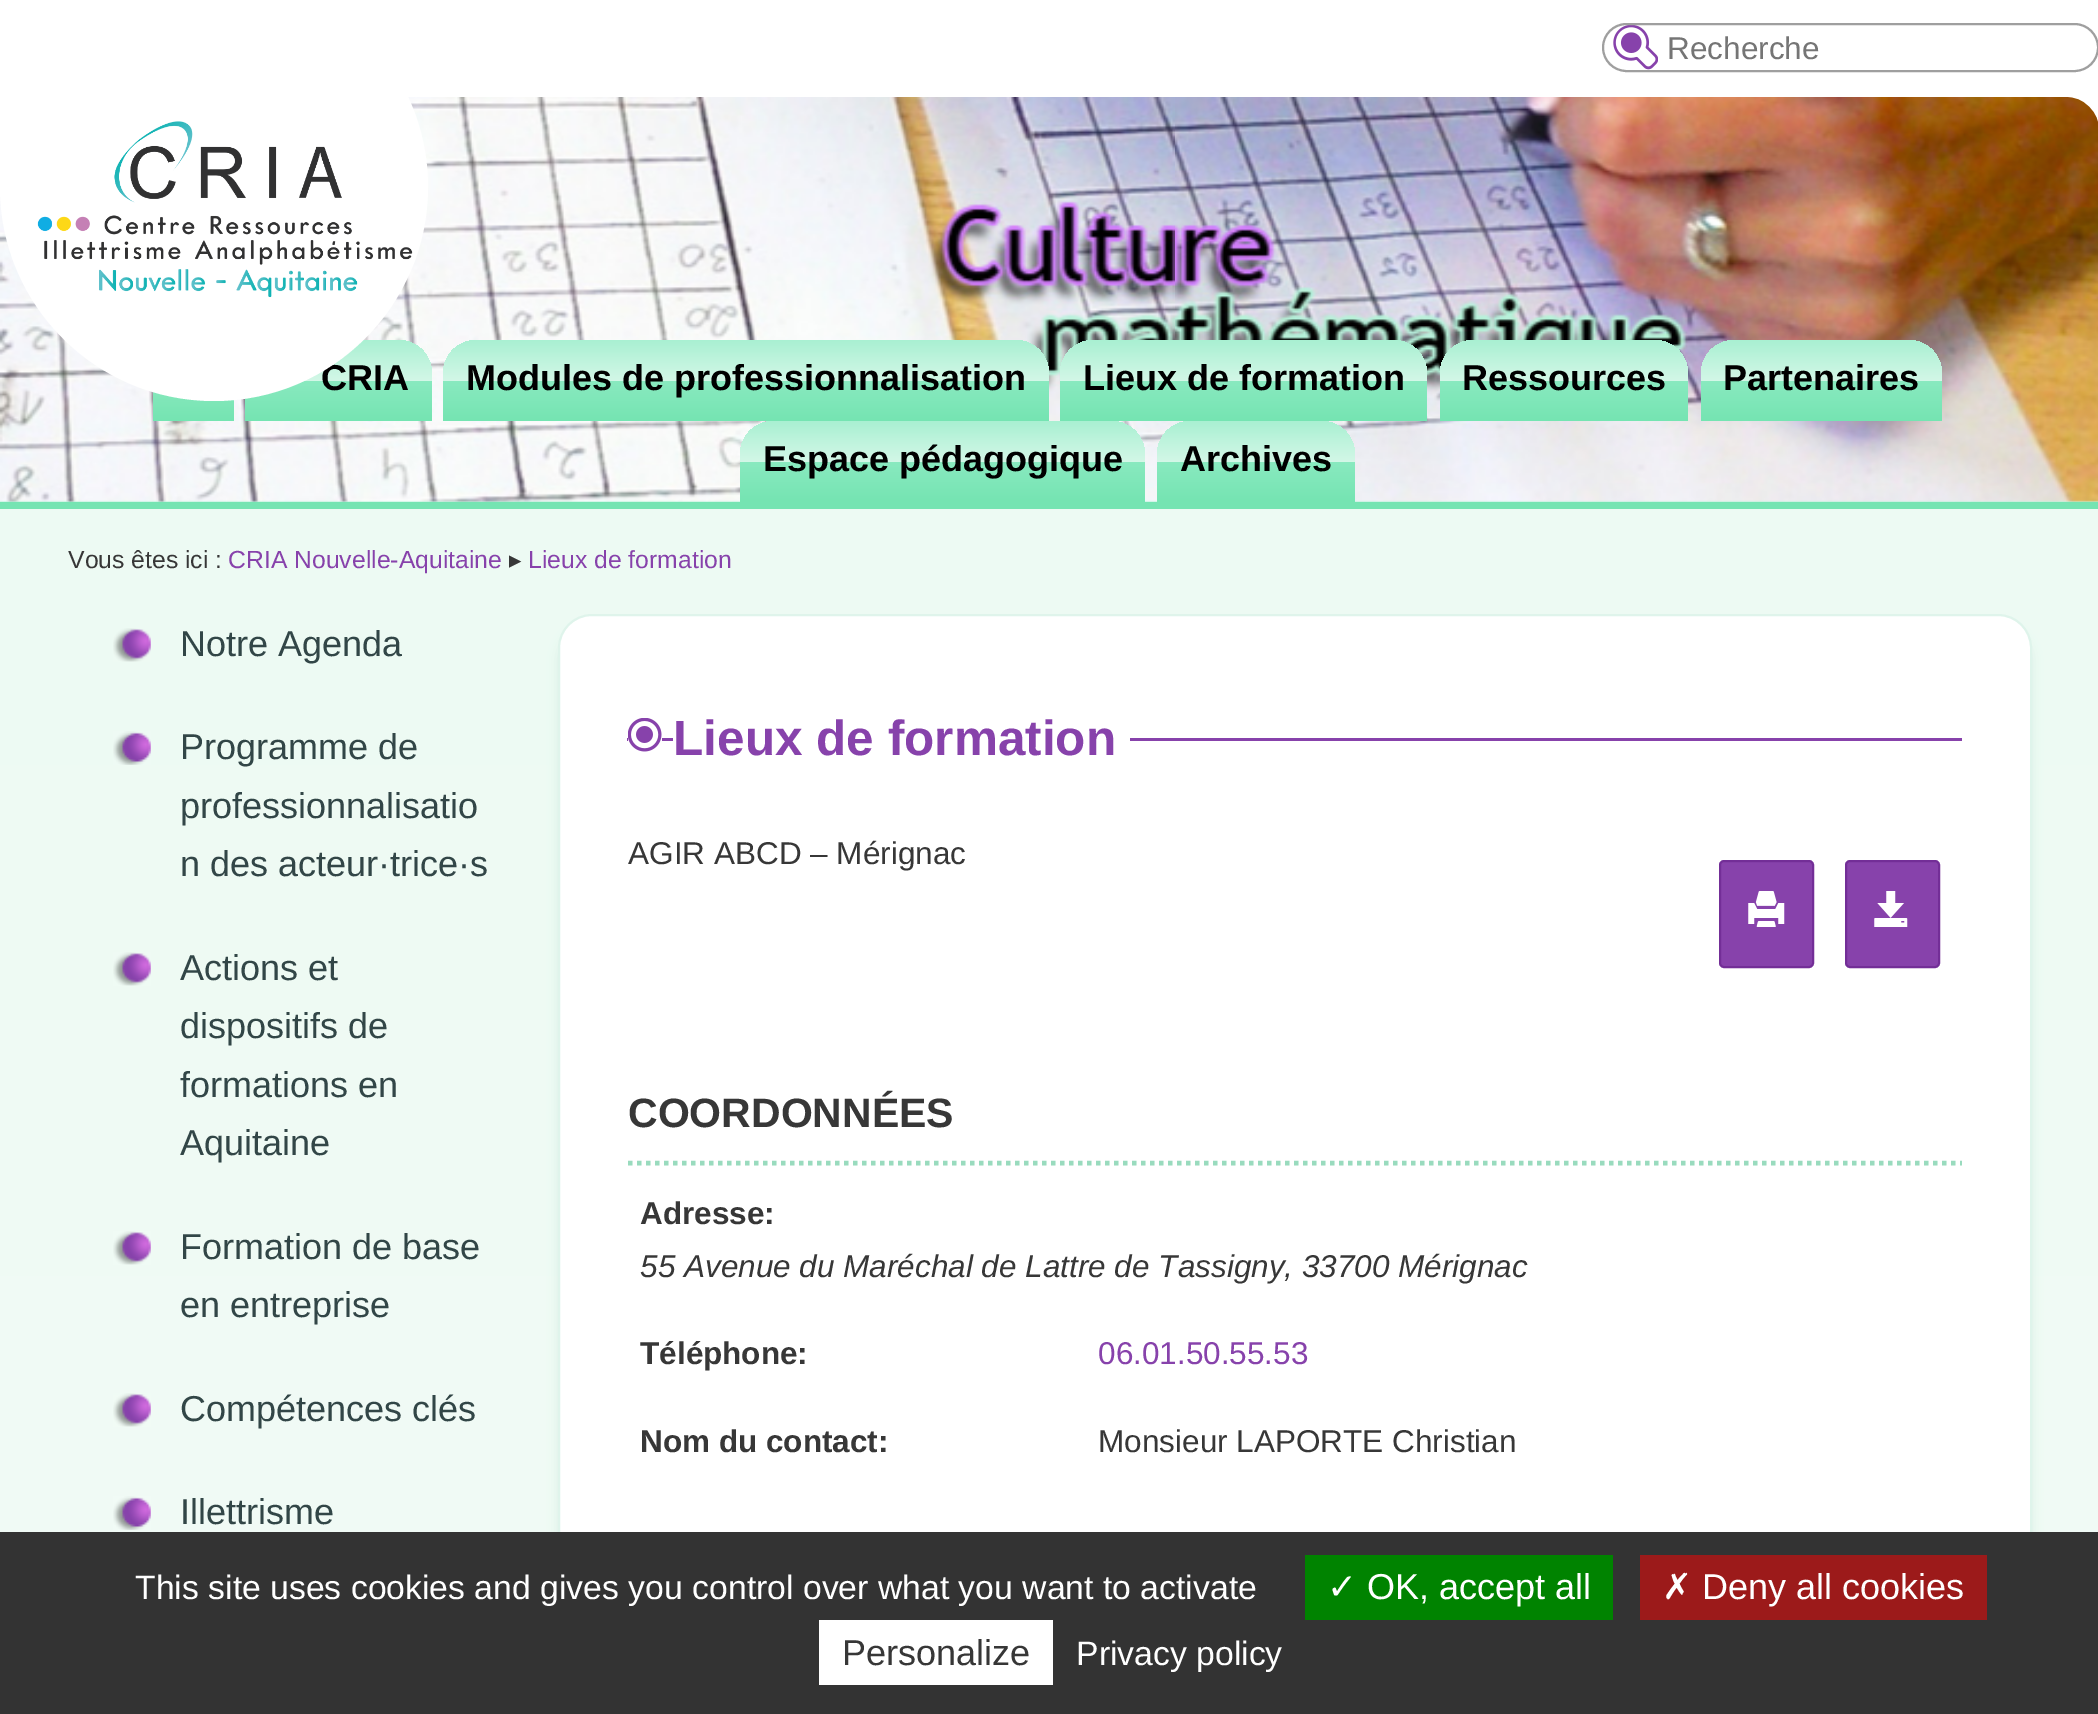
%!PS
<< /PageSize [2098 1714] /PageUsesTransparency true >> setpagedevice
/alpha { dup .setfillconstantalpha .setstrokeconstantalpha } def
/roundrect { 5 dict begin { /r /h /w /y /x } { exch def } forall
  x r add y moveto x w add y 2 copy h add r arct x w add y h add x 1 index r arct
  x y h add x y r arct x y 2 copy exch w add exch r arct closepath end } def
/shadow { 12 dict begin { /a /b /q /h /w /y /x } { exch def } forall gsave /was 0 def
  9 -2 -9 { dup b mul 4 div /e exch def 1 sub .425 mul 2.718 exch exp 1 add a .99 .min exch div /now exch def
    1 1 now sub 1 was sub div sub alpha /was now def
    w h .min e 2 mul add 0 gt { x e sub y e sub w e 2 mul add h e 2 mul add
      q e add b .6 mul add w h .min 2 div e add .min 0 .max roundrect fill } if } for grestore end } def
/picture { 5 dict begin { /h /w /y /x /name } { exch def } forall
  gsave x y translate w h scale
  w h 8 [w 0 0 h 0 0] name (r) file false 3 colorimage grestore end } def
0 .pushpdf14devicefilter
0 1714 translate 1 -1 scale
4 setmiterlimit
0.718 0.953 0.851 setrgbcolor
0 0 2098 1714 rectfill
(img1.rgb) 318 0 1780 122 picture
(img2.rgb) 1613 25 45 45 picture
0.624 setgray
2 setlinewidth
1603 24 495 47 23.5 roundrect stroke
/LiberationSans-Regular [31.5 0 0 -31.5 0 0] selectfont
0.459 setgray
1667 59 moveto (Recherche) show
(img4.rgb) 0 97 2098 405 picture
gsave newpath 279 340 moveto 398 340 lineto 417 340 432 355 432 374 curveto 432 421 lineto 245 421 lineto 245 374 lineto 245 355 260 340 279 340 curveto closepath clip newpath
<< /ShadingType 2 /ColorSpace /DeviceRGB /Coords [339 340 339 421] /Extend [true true] /Function << /FunctionType 3 /Domain [0 1] /Functions [<< /FunctionType 2 /Domain [0 1] /C0 [0.663 0.941 0.824] /C1 [0.827 0.969 0.906] /N 1 >> << /FunctionType 2 /Domain [0 1] /C0 [0.827 0.969 0.906] /C1 [0.537 0.914 0.749] /N 1 >> << /FunctionType 2 /Domain [0 1] /C0 [0.537 0.914 0.749] /C1 [0.459 0.894 0.698] /N 1 >>] /Bounds [0.5 0.51] /Encode [0 1 0 1 0 1] >> >> shfill grestore
/LiberationSans-Bold [36 0 0 -36 0 0] selectfont
0 setgray
321 390 moveto (CRIA) show
gsave newpath 153 392 moveto 234 392 lineto 234 421 lineto 153 421 lineto closepath clip newpath
<< /ShadingType 2 /ColorSpace /DeviceRGB /Coords [194 340 194 421] /Extend [true true] /Function << /FunctionType 3 /Domain [0 1] /Functions [<< /FunctionType 2 /Domain [0 1] /C0 [0.663 0.941 0.824] /C1 [0.827 0.969 0.906] /N 1 >> << /FunctionType 2 /Domain [0 1] /C0 [0.827 0.969 0.906] /C1 [0.537 0.914 0.749] /N 1 >> << /FunctionType 2 /Domain [0 1] /C0 [0.537 0.914 0.749] /C1 [0.459 0.894 0.698] /N 1 >>] /Bounds [0.5 0.51] /Encode [0 1 0 1 0 1] >> >> shfill grestore
1 setgray
newpath 0 -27 moveto 214 -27 lineto 332 -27 428 69 428 187 curveto 428 305 332 401 214 401 curveto 96 401 0 305 0 187 curveto closepath fill
(img3.rgb) 37 121 376 177 picture
gsave newpath 477 340 moveto 1015 340 lineto 1034 340 1049 355 1049 374 curveto 1049 421 lineto 443 421 lineto 443 374 lineto 443 355 458 340 477 340 curveto closepath clip newpath
<< /ShadingType 2 /ColorSpace /DeviceRGB /Coords [746 340 746 421] /Extend [true true] /Function << /FunctionType 3 /Domain [0 1] /Functions [<< /FunctionType 2 /Domain [0 1] /C0 [0.663 0.941 0.824] /C1 [0.827 0.969 0.906] /N 1 >> << /FunctionType 2 /Domain [0 1] /C0 [0.827 0.969 0.906] /C1 [0.537 0.914 0.749] /N 1 >> << /FunctionType 2 /Domain [0 1] /C0 [0.537 0.914 0.749] /C1 [0.459 0.894 0.698] /N 1 >>] /Bounds [0.5 0.51] /Encode [0 1 0 1 0 1] >> >> shfill grestore
0 setgray
466 390 moveto (Modules de professionnalisation) show
gsave newpath 1094 340 moveto 1393 340 lineto 1412 340 1427 355 1427 374 curveto 1427 421 lineto 1060 421 lineto 1060 374 lineto 1060 355 1075 340 1094 340 curveto closepath clip newpath
<< /ShadingType 2 /ColorSpace /DeviceRGB /Coords [1243 340 1243 421] /Extend [true true] /Function << /FunctionType 3 /Domain [0 1] /Functions [<< /FunctionType 2 /Domain [0 1] /C0 [0.663 0.941 0.824] /C1 [0.827 0.969 0.906] /N 1 >> << /FunctionType 2 /Domain [0 1] /C0 [0.827 0.969 0.906] /C1 [0.537 0.914 0.749] /N 1 >> << /FunctionType 2 /Domain [0 1] /C0 [0.537 0.914 0.749] /C1 [0.459 0.894 0.698] /N 1 >>] /Bounds [0.5 0.51] /Encode [0 1 0 1 0 1] >> >> shfill grestore
1083 390 moveto (Lieux de formation) show
gsave newpath 1474 340 moveto 1654 340 lineto 1673 340 1688 355 1688 374 curveto 1688 421 lineto 1440 421 lineto 1440 374 lineto 1440 355 1455 340 1474 340 curveto closepath clip newpath
<< /ShadingType 2 /ColorSpace /DeviceRGB /Coords [1564 340 1564 421] /Extend [true true] /Function << /FunctionType 3 /Domain [0 1] /Functions [<< /FunctionType 2 /Domain [0 1] /C0 [0.663 0.941 0.824] /C1 [0.827 0.969 0.906] /N 1 >> << /FunctionType 2 /Domain [0 1] /C0 [0.827 0.969 0.906] /C1 [0.537 0.914 0.749] /N 1 >> << /FunctionType 2 /Domain [0 1] /C0 [0.537 0.914 0.749] /C1 [0.459 0.894 0.698] /N 1 >>] /Bounds [0.5 0.51] /Encode [0 1 0 1 0 1] >> >> shfill grestore
1462 390 moveto (Ressources) show
gsave newpath 1735 340 moveto 1908 340 lineto 1927 340 1942 355 1942 374 curveto 1942 421 lineto 1701 421 lineto 1701 374 lineto 1701 355 1716 340 1735 340 curveto closepath clip newpath
<< /ShadingType 2 /ColorSpace /DeviceRGB /Coords [1821 340 1821 421] /Extend [true true] /Function << /FunctionType 3 /Domain [0 1] /Functions [<< /FunctionType 2 /Domain [0 1] /C0 [0.663 0.941 0.824] /C1 [0.827 0.969 0.906] /N 1 >> << /FunctionType 2 /Domain [0 1] /C0 [0.827 0.969 0.906] /C1 [0.537 0.914 0.749] /N 1 >> << /FunctionType 2 /Domain [0 1] /C0 [0.537 0.914 0.749] /C1 [0.459 0.894 0.698] /N 1 >>] /Bounds [0.5 0.51] /Encode [0 1 0 1 0 1] >> >> shfill grestore
1723 390 moveto (Partenaires) show
gsave newpath 774 421 moveto 1111 421 lineto 1130 421 1145 436 1145 455 curveto 1145 502 lineto 740 502 lineto 740 455 lineto 740 436 755 421 774 421 curveto closepath clip newpath
<< /ShadingType 2 /ColorSpace /DeviceRGB /Coords [943 421 943 502] /Extend [true true] /Function << /FunctionType 3 /Domain [0 1] /Functions [<< /FunctionType 2 /Domain [0 1] /C0 [0.663 0.941 0.824] /C1 [0.827 0.969 0.906] /N 1 >> << /FunctionType 2 /Domain [0 1] /C0 [0.827 0.969 0.906] /C1 [0.537 0.914 0.749] /N 1 >> << /FunctionType 2 /Domain [0 1] /C0 [0.537 0.914 0.749] /C1 [0.459 0.894 0.698] /N 1 >>] /Bounds [0.5 0.51] /Encode [0 1 0 1 0 1] >> >> shfill grestore
763 471 moveto (Espace pédagogique) show
gsave newpath 1191 421 moveto 1321 421 lineto 1340 421 1355 436 1355 455 curveto 1355 502 lineto 1157 502 lineto 1157 455 lineto 1157 436 1172 421 1191 421 curveto closepath clip newpath
<< /ShadingType 2 /ColorSpace /DeviceRGB /Coords [1256 421 1256 502] /Extend [true true] /Function << /FunctionType 3 /Domain [0 1] /Functions [<< /FunctionType 2 /Domain [0 1] /C0 [0.663 0.941 0.824] /C1 [0.827 0.969 0.906] /N 1 >> << /FunctionType 2 /Domain [0 1] /C0 [0.827 0.969 0.906] /C1 [0.537 0.914 0.749] /N 1 >> << /FunctionType 2 /Domain [0 1] /C0 [0.537 0.914 0.749] /C1 [0.459 0.894 0.698] /N 1 >>] /Bounds [0.5 0.51] /Encode [0 1 0 1 0 1] >> >> shfill grestore
1180 471 moveto (Archives) show
gsave newpath 0 509 moveto 2098 509 lineto 2098 1532 lineto 0 1532 lineto closepath clip newpath
<< /ShadingType 2 /ColorSpace /DeviceRGB /Coords [1050 508 1050 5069] /Extend [true true] /Function << /FunctionType 2 /Domain [0 1] /C0 [0.929 0.98 0.953] /C1 [1 1 1] /N 1 >> >> shfill grestore
0.459 0.894 0.698 setrgbcolor
0 502 2098 7 rectfill
/LiberationSans-Regular [24.75 0 0 -24.75 0 0] selectfont
0.216 setgray
68 568 moveto (Vous êtes ici :) show
0.529 0.259 0.671 setrgbcolor
228 568 moveto (CRIA Nouvelle-Aquitaine) show
/DejaVuSans-Regular [24.75 0 0 -24.75 0 0] selectfont
0.216 setgray
509 568 moveto (▸) show
/LiberationSans-Regular [24.75 0 0 -24.75 0 0] selectfont
0.529 0.259 0.671 setrgbcolor
528 568 moveto (Lieux de formation) show
(img5.rgb) 113 628 38 34 picture
/LiberationSans-Regular [36 0 0 -36 0 0] selectfont
0.196 0.275 0.278 setrgbcolor
180 656 moveto (Notre Agenda) show
(img6.rgb) 113 731 38 34 picture
180 759 moveto (Programme de) show
180 818 moveto (professionnalisatio) show
180 876 moveto (n des acteur·trice·s) show
(img7.rgb) 113 952 38 34 picture
180 980 moveto (Actions et) show
180 1038 moveto (dispositifs de) show
180 1097 moveto (formations en) show
180 1155 moveto (Aquitaine) show
(img8.rgb) 113 1231 38 34 picture
180 1259 moveto (Formation de base) show
180 1317 moveto (en entreprise) show
(img9.rgb) 113 1393 38 34 picture
180 1421 moveto (Compétences clés) show
(img10.rgb) 113 1496 38 34 picture
180 1524 moveto (Illettrisme) show
0.855 0.933 0.898 setrgbcolor
558 626 1474 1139 34 5.5 1 shadow
1 setgray
559 615 1472 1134 33 roundrect gsave fill grestore
0.875 0.957 0.922 setrgbcolor
stroke
0.529 0.259 0.671 setrgbcolor
627 738 1335 3 rectfill
1 setgray
628 738 34 3 rectfill
673 738 457 3 rectfill
(img11.rgb) 628 718 34 34 picture
/LiberationSans-Bold [49.5 0 0 -49.5 0 0] selectfont
0.529 0.259 0.671 setrgbcolor
673 755 moveto (Lieux de formation) show
/LiberationSans-Regular [31.5 0 0 -31.5 0 0] selectfont
0.216 setgray
628 864 moveto (AGIR ABCD – Mérignac) show
0.529 0.259 0.671 setrgbcolor
1720 861 93 106 4 roundrect gsave fill grestore
0.451 0.18 0.592 setrgbcolor
stroke
(img12.rgb) 1748 891 37 36 picture
0.529 0.259 0.671 setrgbcolor
1846 861 93 106 4 roundrect gsave fill grestore
0.451 0.18 0.592 setrgbcolor
stroke
(img13.rgb) 1874 891 34 36 picture
0.6 0.859 0.745 setrgbcolor
4.5 setlinewidth
[4.5 4.5] 0 setdash
newpath 628 1163 moveto 1962 1163 lineto stroke
/LiberationSans-Bold [41 0 0 -41 0 0] selectfont
0.216 setgray
628 1127 moveto (COORDONNÉES) show
/LiberationSans-Bold [31.5 0 0 -31.5 0 0] selectfont
640 1224 moveto (Adresse:) show
/LiberationSans-Italic [31.5 0 0 -31.5 0 0] selectfont
640 1277 moveto (55 Avenue du Maréchal de Lattre de Tassigny, 33700 Mérignac) show
/LiberationSans-Bold [31.5 0 0 -31.5 0 0] selectfont
640 1364 moveto (Téléphone:) show
/LiberationSans-Regular [31.5 0 0 -31.5 0 0] selectfont
0.529 0.259 0.671 setrgbcolor
1098 1364 moveto (06.01.50.55.53) show
/LiberationSans-Bold [31.5 0 0 -31.5 0 0] selectfont
0.216 setgray
640 1452 moveto (Nom du contact:) show
/LiberationSans-Regular [31.5 0 0 -31.5 0 0] selectfont
1098 1452 moveto (Monsieur LAPORTE Christian) show
0.2 setgray
0 1532 2098 182 rectfill
/LiberationSans-Regular [33.75 0 0 -33.75 0 0] selectfont
1 setgray
135 1599 moveto (This site uses cookies and gives you control over what you want to activate) show
0 0.514 0 setrgbcolor
1305 1555 308 65 rectfill
/DejaVuSans-Regular [36 0 0 -36 0 0] selectfont
1 setgray
1327 1599 moveto (✓) show
/LiberationSans-Regular [36 0 0 -36 0 0] selectfont
1367 1599 moveto (OK, accept all) show
0.612 0.102 0.102 setrgbcolor
1640 1555 347 65 rectfill
/DejaVuSans-Regular [36 0 0 -36 0 0] selectfont
1 setgray
1662 1599 moveto (✗) show
/LiberationSans-Regular [36 0 0 -36 0 0] selectfont
1702 1599 moveto (Deny all cookies) show
819 1620 234 65 rectfill
0.216 setgray
842 1665 moveto (Personalize) show
/LiberationSans-Regular [33.75 0 0 -33.75 0 0] selectfont
1 setgray
1076 1665 moveto (Privacy policy) show
.poppdf14devicefilter showpage
